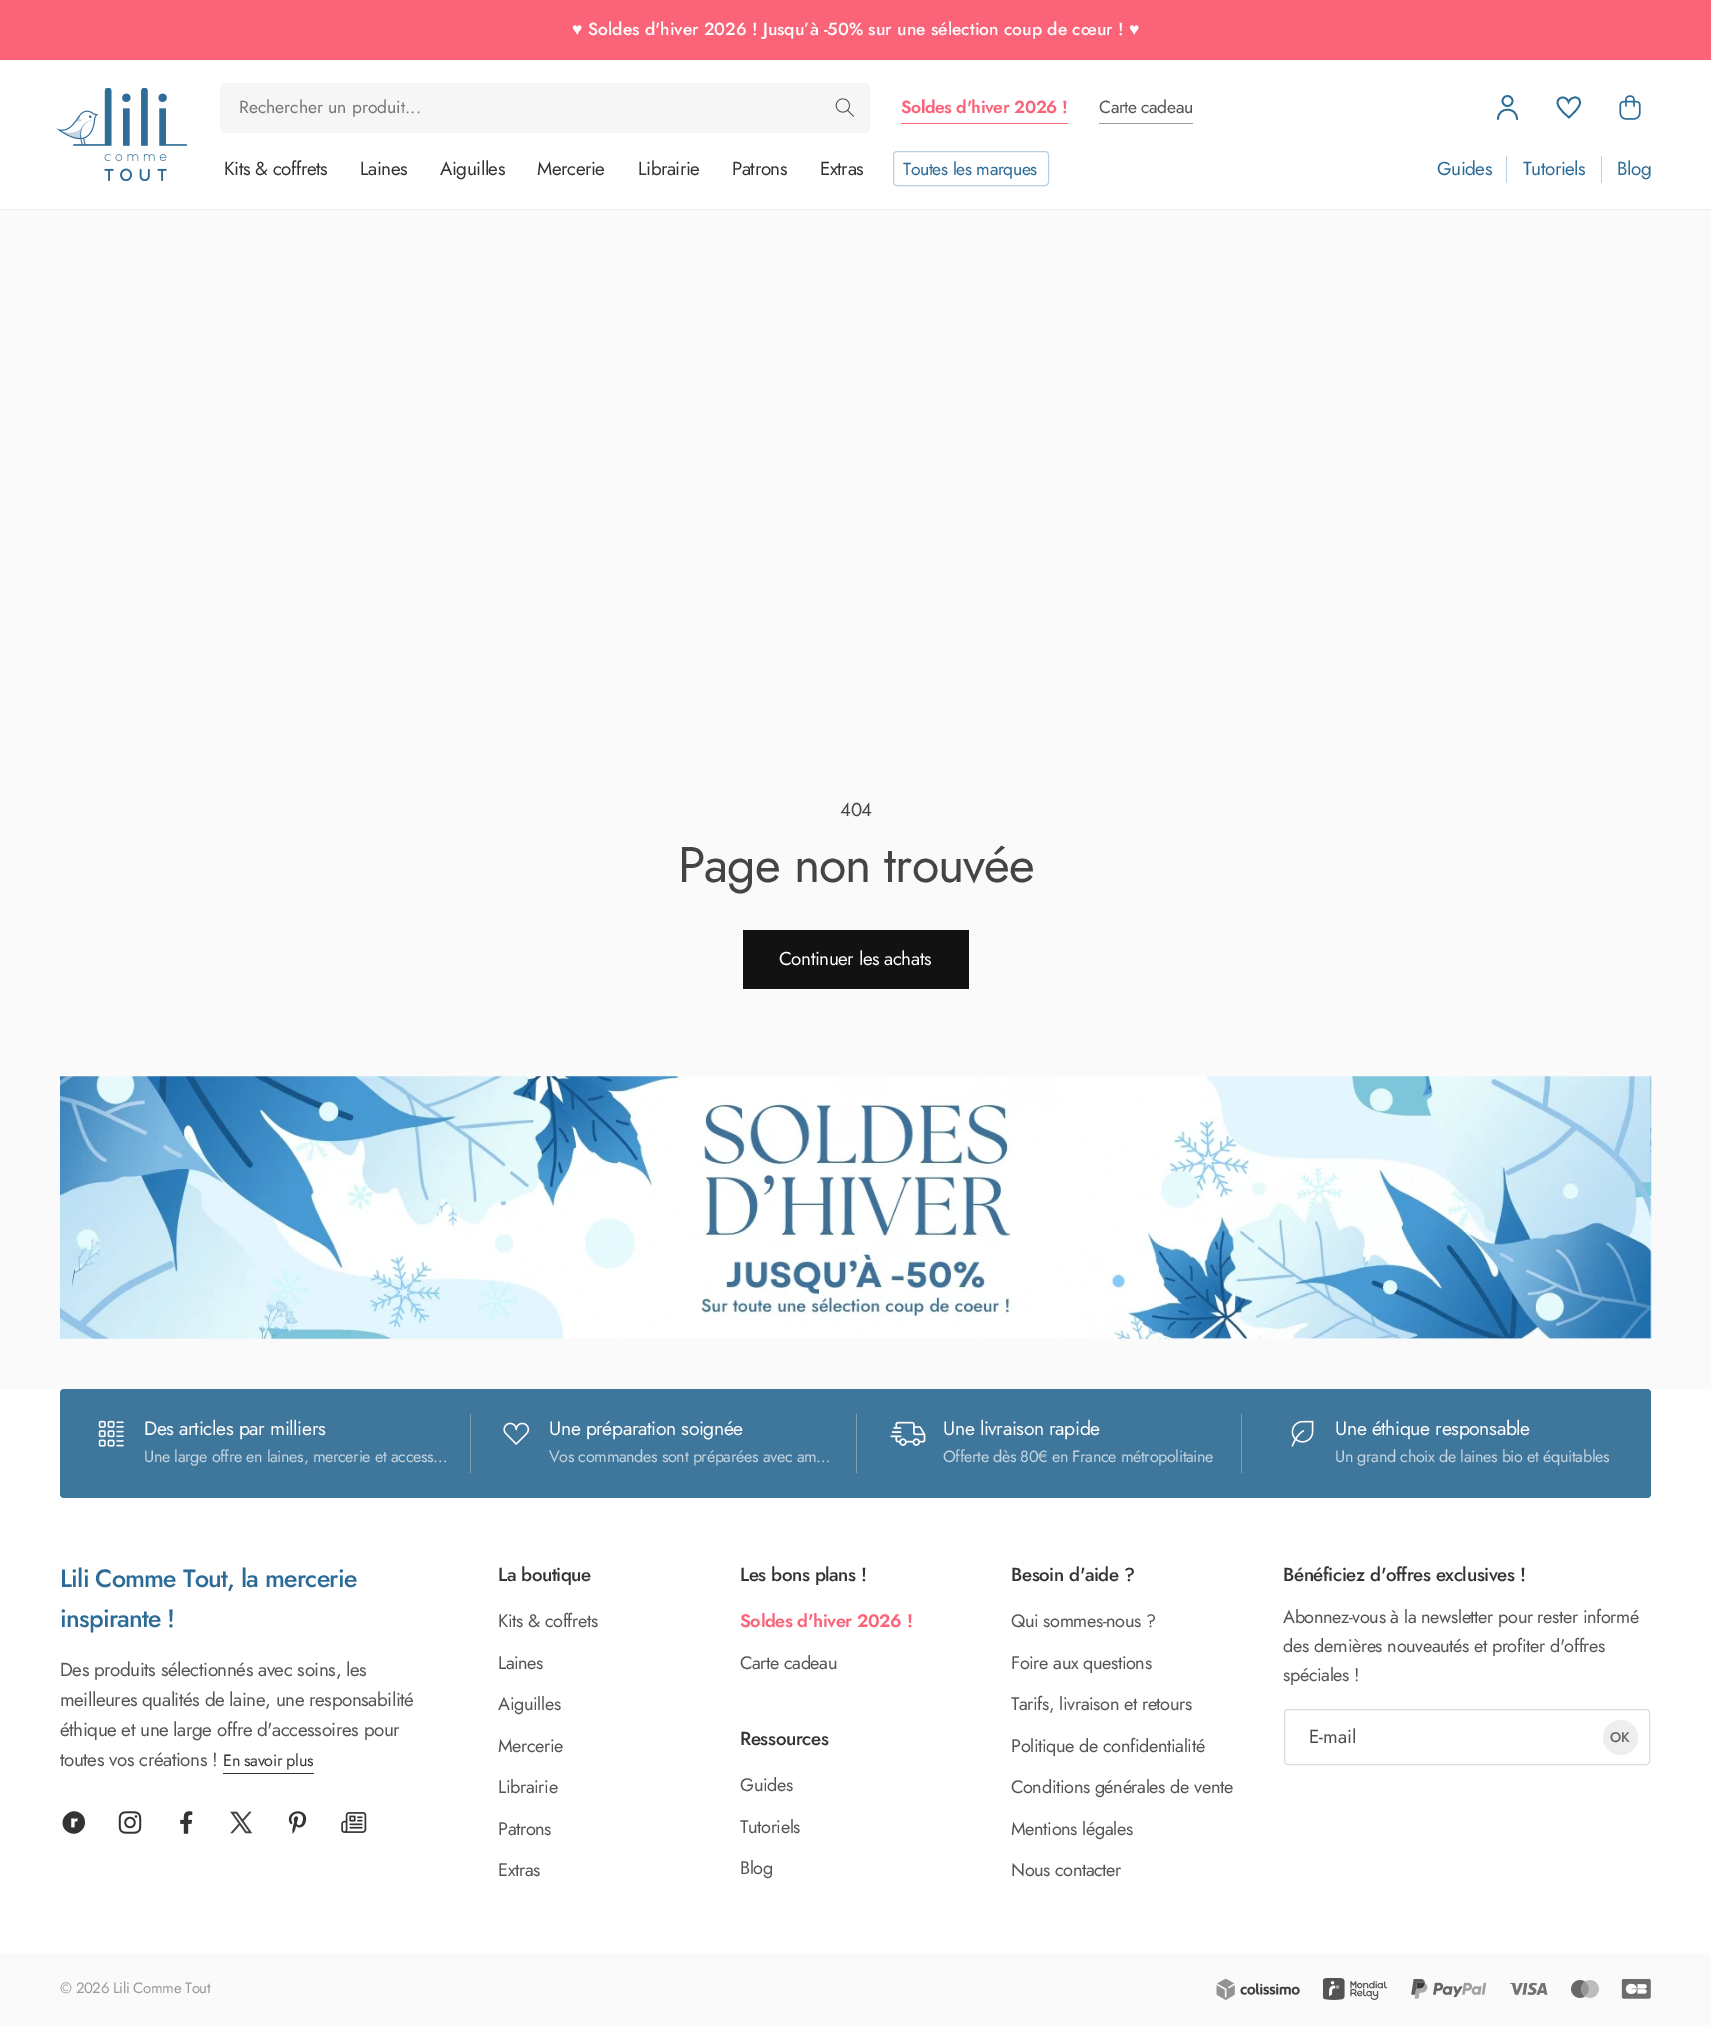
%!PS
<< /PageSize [1711 2025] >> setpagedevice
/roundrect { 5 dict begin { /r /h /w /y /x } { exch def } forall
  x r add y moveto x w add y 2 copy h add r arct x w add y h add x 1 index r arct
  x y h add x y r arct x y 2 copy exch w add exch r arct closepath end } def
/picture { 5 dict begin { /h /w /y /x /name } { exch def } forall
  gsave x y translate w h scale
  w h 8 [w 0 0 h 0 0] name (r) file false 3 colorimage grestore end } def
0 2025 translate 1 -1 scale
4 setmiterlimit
0.98 setgray
0 0 1711 2025 rectfill
0.98 0.388 0.471 setrgbcolor
0 0 1711 60 rectfill
/LiberationSans-Regular [17.5 0 0 -17.5 0 0] selectfont
1 setgray
572 35 moveto (♥) show
/Jost-Medium [17.5 0 0 -17.5 0 0] selectfont
588 35 moveto (Soldes d'hiver 2026 ! Jusqu’à -50% sur une sélection coup de cœur !) show
/LiberationSans-Regular [17.5 0 0 -17.5 0 0] selectfont
1129 35 moveto (♥) show
0 60 1711 149 rectfill
0.933 setgray
0 209 1711 1 rectfill
(img1.rgb) 55 88 133 93 picture
0.965 setgray
220 83 650 50 6 roundrect fill
/Jost-Regular [17.5 0 0 -17.5 0 0] selectfont
0.467 setgray
239 113 moveto (Rechercher un produit...) show
(img2.rgb) 835 98 19 19 picture
/Jost-SemiBold [17.5 0 0 -17.5 0 0] selectfont
0.98 0.388 0.471 setrgbcolor
901 113 moveto -0.4 0 (Soldes d'hiver 2026 !) ashow
901 123 167 1 rectfill
/Jost-Regular [17.5 0 0 -17.5 0 0] selectfont
0.333 setgray
1099 113 moveto -0.4 0 (Carte cadeau) ashow
0.6 setgray
1099 123 94 1 rectfill
0.169 0.42 0.592 setrgbcolor
1.7 setlinewidth
newpath 1507.5 101 5 0 360 arc closepath stroke
1 setlinecap
newpath 1498 119 moveto 1498 106.5 1517 106.5 1517 119 curveto stroke
newpath 1580 102.5 moveto 1580 107 1575 111.5 1569 117.5 curveto 1565 114 1560.5 110.5 1558.5 106 curveto 1554 98 1565.5 93.5 1568.5 102 curveto 1571.5 95.5 1580 95.5 1580 102.5 curveto closepath stroke
(img3.rgb) 1619 95 22 25 picture
/Jost-Regular [18.75 0 0 -18.75 0 0] selectfont
0.2 setgray
224 175 moveto -0.4 0 (Kits & coffrets) ashow
360 175 moveto -0.4 0 (Laines) ashow
440 175 moveto -0.4 0 (Aiguilles) ashow
537 175 moveto -0.4 0 (Mercerie) ashow
638 175 moveto -0.4 0 (Librairie) ashow
732 175 moveto -0.4 0 (Patrons) ashow
820 175 moveto -0.4 0 (Extras) ashow
0.725 0.824 0.89 setrgbcolor
1 setlinewidth
0 setlinecap
893.5 151.5 155 34 3.5 roundrect stroke
/Jost-Regular [17.5 0 0 -17.5 0 0] selectfont
0.169 0.42 0.592 setrgbcolor
903 175 moveto -0.4 0 (Toutes les marques) ashow
/Jost-Regular [18.75 0 0 -18.75 0 0] selectfont
1437 175 moveto -0.4 0 (Guides) ashow
0.725 0.824 0.89 setrgbcolor
1506 156 1 27 rectfill
0.169 0.42 0.592 setrgbcolor
1523 175 moveto -0.4 0 (Tutoriels) ashow
0.725 0.824 0.89 setrgbcolor
1601 156 1 27 rectfill
0.169 0.42 0.592 setrgbcolor
1617 175 moveto -0.4 0 (Blog) ashow
0.267 setgray
840 816 moveto -0.4 0 (404) ashow
/Jost-Regular [50 0 0 -50 0 0] selectfont
678 882 moveto -1 0 (Page non trouvée) ashow
0.071 setgray
743 930 226 59 rectfill
/Jost-Regular [18.75 0 0 -18.75 0 0] selectfont
1 setgray
779 965 moveto -0.4 0 (Continuer les achats) ashow
(img4.rgb) 60 1076 1592 263 picture
0 1389 1711 564 rectfill
0.247 0.463 0.608 setrgbcolor
60 1389 1591 109 4 roundrect fill
(img5.rgb) 98 1420 26 27 picture
/Jost-Regular [19.4 0 0 -19.4 0 0] selectfont
1 setgray
144 1435 moveto -0.4 0 (Des articles par milliers) ashow
/Jost-Regular [16.25 0 0 -16.25 0 0] selectfont
0.773 0.839 0.882 setrgbcolor
144 1462 moveto -0.4 0 (Une large offre en laines, mercerie et access…) ashow
0.475 0.624 0.725 setrgbcolor
470 1414 1 59 rectfill
(img6.rgb) 503 1422 27 23 picture
/Jost-Regular [19.4 0 0 -19.4 0 0] selectfont
1 setgray
549 1435 moveto -0.4 0 (Une préparation soignée) ashow
/Jost-Regular [16.25 0 0 -16.25 0 0] selectfont
0.773 0.839 0.882 setrgbcolor
549 1462 moveto -0.4 0 (Vos commandes sont préparées avec am…) ashow
0.475 0.624 0.725 setrgbcolor
856 1414 1 59 rectfill
(img7.rgb) 890 1421 36 25 picture
/Jost-Regular [19.4 0 0 -19.4 0 0] selectfont
1 setgray
943 1435 moveto -0.4 0 (Une livraison rapide) ashow
/Jost-Regular [16.25 0 0 -16.25 0 0] selectfont
0.773 0.839 0.882 setrgbcolor
943 1462 moveto -0.4 0 (Offerte dès 80€ en France métropolitaine) ashow
0.475 0.624 0.725 setrgbcolor
1241 1414 1 59 rectfill
(img8.rgb) 1291 1420 23 27 picture
/Jost-Regular [19.4 0 0 -19.4 0 0] selectfont
1 setgray
1335 1435 moveto -0.4 0 (Une éthique responsable) ashow
gsave
1335 1444 275 26 rectclip
/Jost-Regular [16.25 0 0 -16.25 0 0] selectfont
0.773 0.839 0.882 setrgbcolor
1335 1462 moveto -0.4 0 (Un grand choix de laines bio et équitables) ashow
grestore
/Jost-Medium [25 0 0 -25 0 0] selectfont
0.169 0.42 0.592 setrgbcolor
60 1587 moveto -0.75 0 (Lili Comme Tout, la mercerie) ashow
60 1627 moveto -0.75 0 (inspirante !) ashow
/Jost-Regular [18.75 0 0 -18.75 0 0] selectfont
0.333 setgray
60 1676 moveto -0.4 0 (Des produits sélectionnés avec soins, les) ashow
60 1706 moveto -0.4 0 (meilleures qualités de laine, une responsabilité) ashow
60 1736 moveto -0.4 0 (éthique et une large offre d'accessoires pour) ashow
60 1766 moveto -0.4 0 (toutes vos créations !) ashow
/Jost-Regular [16.25 0 0 -16.25 0 0] selectfont
0.2 setgray
223 1766 moveto -0.4 0 (En savoir plus) ashow
223 1773 91 1 rectfill
(img9.rgb) 62 1811 23 23 picture
(img10.rgb) 118 1811 24 23 picture
(img11.rgb) 180 1811 13 23 picture
(img12.rgb) 230 1811 23 23 picture
(img13.rgb) 288 1811 19 23 picture
(img14.rgb) 341 1812 26 21 picture
/Jost-Medium [18.75 0 0 -18.75 0 0] selectfont
498 1581 moveto -0.4 0 (La boutique) ashow
/Jost-Regular [18.1 0 0 -18.1 0 0] selectfont
0.333 setgray
498 1627 moveto -0.4 0 (Kits & coffrets) ashow
498 1669 moveto -0.4 0 (Laines) ashow
498 1710 moveto -0.4 0 (Aiguilles) ashow
498 1752 moveto -0.4 0 (Mercerie) ashow
498 1793 moveto -0.4 0 (Librairie) ashow
498 1835 moveto -0.4 0 (Patrons) ashow
498 1876 moveto -0.4 0 (Extras) ashow
/Jost-Medium [18.75 0 0 -18.75 0 0] selectfont
0.2 setgray
740 1581 moveto -0.4 0 (Les bons plans !) ashow
/Jost-SemiBold [18.1 0 0 -18.1 0 0] selectfont
0.98 0.388 0.471 setrgbcolor
740 1627 moveto -0.4 0 (Soldes d'hiver 2026 !) ashow
/Jost-Regular [18.1 0 0 -18.1 0 0] selectfont
0.333 setgray
740 1669 moveto -0.4 0 (Carte cadeau) ashow
/Jost-Medium [18.75 0 0 -18.75 0 0] selectfont
0.2 setgray
740 1745 moveto -0.4 0 (Ressources) ashow
/Jost-Regular [18.1 0 0 -18.1 0 0] selectfont
0.333 setgray
740 1791 moveto -0.4 0 (Guides) ashow
740 1833 moveto -0.4 0 (Tutoriels) ashow
740 1874 moveto -0.4 0 (Blog) ashow
/Jost-Medium [18.75 0 0 -18.75 0 0] selectfont
0.2 setgray
1011 1581 moveto -0.4 0 (Besoin d'aide ?) ashow
/Jost-Regular [18.1 0 0 -18.1 0 0] selectfont
0.333 setgray
1011 1627 moveto -0.4 0 (Qui sommes-nous ?) ashow
1011 1669 moveto -0.4 0 (Foire aux questions) ashow
1011 1710 moveto -0.4 0 (Tarifs, livraison et retours) ashow
1011 1752 moveto -0.4 0 (Politique de confidentialité) ashow
1011 1793 moveto -0.4 0 (Conditions générales de vente) ashow
1011 1835 moveto -0.4 0 (Mentions légales) ashow
1011 1876 moveto -0.4 0 (Nous contacter) ashow
/Jost-Medium [18.75 0 0 -18.75 0 0] selectfont
0.2 setgray
1283 1581 moveto -0.4 0 (Bénéficiez d'offres exclusives !) ashow
/Jost-Regular [18.1 0 0 -18.1 0 0] selectfont
0.333 setgray
1283 1623 moveto -0.4 0 (Abonnez-vous à la newsletter pour rester informé) ashow
1283 1652 moveto -0.4 0 (des dernières nouveautés et profiter d'offres) ashow
1283 1681 moveto -0.4 0 (spéciales !) ashow
0.867 setgray
1284.5 1709.5 365 55 3.5 roundrect stroke
/Jost-Regular [18.75 0 0 -18.75 0 0] selectfont
0.302 setgray
1309 1743 moveto (E-mail) show
0.933 setgray
newpath 1620.5 1737.5 17.5 0 360 arc closepath fill
/Jost-Medium [14 0 0 -14 0 0] selectfont
0.4 setgray
1610 1742 moveto (OK) show
/Jost-Regular [15 0 0 -15 0 0] selectfont
0.6 setgray
60 1993 moveto -0.4 0 (© 2026 Lili Comme Tout) ashow
(img15.rgb) 1216 1979 84 21 picture
(img16.rgb) 1323 1978 64 22 picture
(img17.rgb) 1411 1979 75 20 picture
(img18.rgb) 1509 1983 39 12 picture
(img19.rgb) 1571 1980 28 18 picture
(img20.rgb) 1621 1979 30 20 picture
showpage
